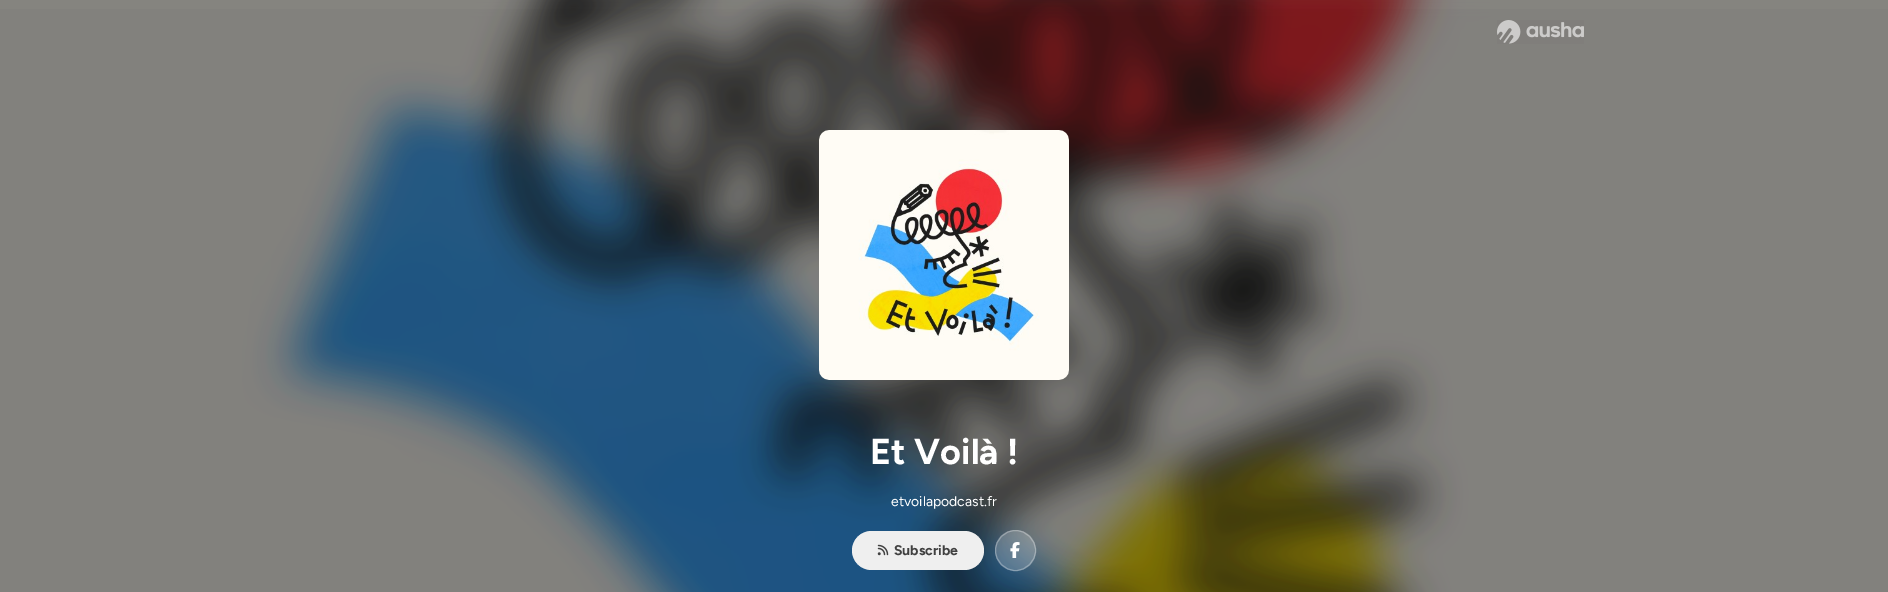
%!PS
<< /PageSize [1888 592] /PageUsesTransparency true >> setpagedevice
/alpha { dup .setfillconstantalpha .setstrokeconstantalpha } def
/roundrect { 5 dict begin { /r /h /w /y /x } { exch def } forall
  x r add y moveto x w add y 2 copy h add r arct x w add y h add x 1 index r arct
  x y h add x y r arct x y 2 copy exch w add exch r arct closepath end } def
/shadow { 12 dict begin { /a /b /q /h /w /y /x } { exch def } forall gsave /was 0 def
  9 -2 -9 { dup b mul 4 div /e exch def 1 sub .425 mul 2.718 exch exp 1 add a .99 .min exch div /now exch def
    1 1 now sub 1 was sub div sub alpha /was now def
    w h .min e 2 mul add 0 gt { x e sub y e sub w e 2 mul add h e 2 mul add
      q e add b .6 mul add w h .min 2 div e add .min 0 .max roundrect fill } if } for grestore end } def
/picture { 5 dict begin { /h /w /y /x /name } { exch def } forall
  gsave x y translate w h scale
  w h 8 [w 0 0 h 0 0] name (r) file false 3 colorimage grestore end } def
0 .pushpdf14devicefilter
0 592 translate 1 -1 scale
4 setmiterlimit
1 setgray
0 0 1888 592 rectfill
(img1.rgb) 0 0 1888 592 picture
0 setgray
-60 -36 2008 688 0 20 0.5 shadow
(img2.rgb) 1497 20 87 24 picture
(img3.rgb) 819 130 250 250 picture
/Figtree-Bold [36 0 0 -36 0 0] selectfont
1 setgray
870 464 moveto (Et Voilà !) show
/Figtree-Regular [14 0 0 -14 0 0] selectfont
891 506 moveto (etvoilapodcast.fr) show
0.937 setgray
852 531 132 39 19.5 roundrect fill
(img4.rgb) 877 544 12 12 picture
/Figtree-Bold [14 0 0 -14 0 0] selectfont
0.255 setgray
894 555 moveto (Subscribe) show
0.2 alpha
1 setgray
newpath 1015.5 550.5 20.5 0 360 arc closepath fill
0.3 alpha
newpath 1015.5 550.5 20 0 360 arc closepath stroke
1 alpha
(img5.rgb) 1010 542 10 16 picture
.poppdf14devicefilter showpage
